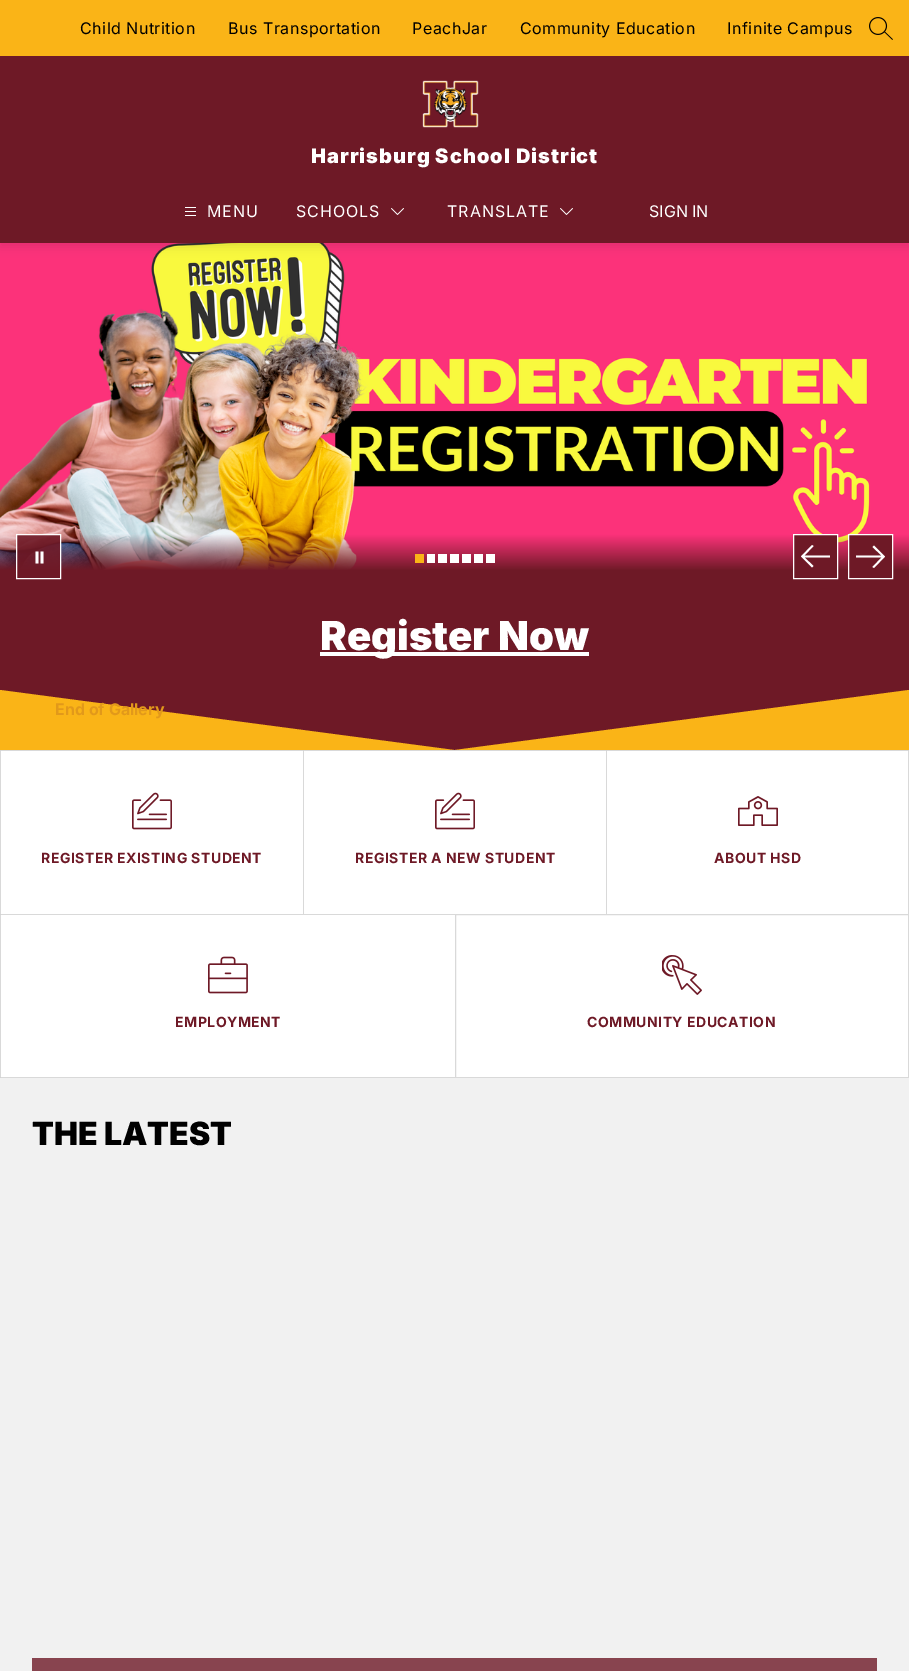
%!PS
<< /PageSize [909 1671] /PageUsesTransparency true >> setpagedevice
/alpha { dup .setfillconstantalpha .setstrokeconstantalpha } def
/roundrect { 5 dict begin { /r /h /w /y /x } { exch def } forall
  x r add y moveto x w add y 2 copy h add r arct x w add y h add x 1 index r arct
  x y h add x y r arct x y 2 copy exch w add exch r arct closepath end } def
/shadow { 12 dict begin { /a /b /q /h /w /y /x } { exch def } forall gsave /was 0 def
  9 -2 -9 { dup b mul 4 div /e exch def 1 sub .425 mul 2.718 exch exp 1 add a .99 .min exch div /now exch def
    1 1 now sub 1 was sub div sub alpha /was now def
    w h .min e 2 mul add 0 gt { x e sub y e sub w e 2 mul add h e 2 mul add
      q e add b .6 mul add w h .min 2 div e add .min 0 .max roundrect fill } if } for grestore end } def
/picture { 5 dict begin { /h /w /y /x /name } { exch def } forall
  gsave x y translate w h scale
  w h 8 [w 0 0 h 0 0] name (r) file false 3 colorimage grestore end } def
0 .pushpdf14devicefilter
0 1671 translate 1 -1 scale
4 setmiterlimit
1 setgray
0 0 909 1671 rectfill
(img5.rgb) 0 243 909 336 picture
0 setgray
0 4 909 243 0 5 0.1 shadow
0.431 0.098 0.149 setrgbcolor
0 56 909 187 rectfill
0.98 0.706 0.09 setrgbcolor
0 0 909 56 rectfill
/Inter-Regular [16 0 0 -16 0 0] selectfont
0 setgray
80 34 moveto 0.5 0 (Child Nutrition) ashow
228 34 moveto 0.5 0 (Bus Transportation) ashow
412 34 moveto 0.5 0 (PeachJar) ashow
520 34 moveto 0.5 0 (Community Education) ashow
727 34 moveto 0.5 0 (Infinite Campus) ashow
(img1.rgb) 869 17 24 23 picture
(img2.rgb) 422 80 57 48 picture
/Inter-Black [20 0 0 -20 0 0] selectfont
1 setgray
311 163 moveto 1 0 (Harrisburg School District) ashow
(img3.rgb) 185 207 11 9 picture
/Inter-Regular [16 0 0 -16 0 0] selectfont
207 217 moveto 1 0 (MENU) ashow
296 217 moveto 1 0 (SCHOOLS) ashow
(img4.rgb) 391 208 13 7 picture
447 217 moveto 1 0 (TRANSLATE) ashow
(img4.rgb) 560 208 13 7 picture
649 217 moveto (SIGN IN) show
0.431 0.098 0.149 setrgbcolor
0 579 909 171 rectfill
0.9 alpha
17 535 43 35 rectfill
1 alpha
1 setgray
newpath 16.5 534.5 moveto 60.5 534.5 lineto 60.5 578.5 lineto 16.5 578.5 lineto closepath stroke
newpath 38.5 551.5 moveto 35.5 551.5 lineto 35.5 563.5 lineto 38.5 563.5 lineto closepath 43.5 551.5 moveto 40.5 551.5 lineto 40.5 563.5 lineto 43.5 563.5 lineto closepath eofill
0.98 0.706 0.09 setrgbcolor
415 554 9 9 rectfill
1 setgray
427 554 8 9 rectfill
438 554 9 9 rectfill
450 554 9 9 rectfill
462 554 9 9 rectfill
474 554 9 9 rectfill
486 554 9 9 rectfill
0.431 0.098 0.149 setrgbcolor
794 535 43 35 rectfill
1 setgray
newpath 837.5 578.5 moveto 793.5 578.5 lineto 793.5 534.5 lineto 837.5 534.5 lineto closepath stroke
newpath 812 567.5 moveto 801 556.5 lineto 812 545 lineto 813.5 546 lineto 804.5 555.5 lineto 830 555.5 lineto 830 557.5 lineto 804.5 557.5 lineto 813.5 566 lineto closepath fill
0.431 0.098 0.149 setrgbcolor
849 535 43 35 rectfill
1 setgray
newpath 848.5 534.5 moveto 892.5 534.5 lineto 892.5 578.5 lineto 848.5 578.5 lineto closepath stroke
newpath 874 545.5 moveto 885 556.5 lineto 874 568 lineto 872.5 567 lineto 881.5 557.5 lineto 856 557.5 lineto 856 555.5 lineto 881.5 555.5 lineto 872.5 547 lineto closepath fill
320 652 269 4 rectfill
/Inter-Black [40 0 0 -40 0 0] selectfont
320 650 moveto (Register Now) show
0.98 0.706 0.09 setrgbcolor
newpath 454 750 moveto 0 750 lineto 0 690 lineto closepath fill
newpath 909 750 moveto 455 750 lineto 909 690 lineto closepath fill
/Inter-Bold [16 0 0 -16 0 0] selectfont
0.886 0.6 0.102 setrgbcolor
55 715 moveto (End of Gallery) show
0.851 setgray
newpath 0 750 moveto 303 750 lineto 303 751 lineto 1 751 lineto closepath fill
0.15 alpha
0 setgray
newpath 0 914 moveto 0 750 lineto 1 751 lineto 1 914 lineto closepath fill
1 alpha
(img6.rgb) 132 792 40 38 picture
/Inter-Bold [14 0 0 -14 0 0] selectfont
0.431 0.098 0.149 setrgbcolor
41 863 moveto 0.5 0 (REGISTER EXISTING STUDENT) ashow
0.851 setgray
newpath 303 750 moveto 606 750 lineto 606 751 lineto 304 751 lineto closepath fill
0.15 alpha
0 setgray
newpath 303 914 moveto 303 750 lineto 304 751 lineto 304 914 lineto closepath fill
1 alpha
(img6.rgb) 435 792 40 38 picture
0.431 0.098 0.149 setrgbcolor
355 863 moveto 0.5 0 (REGISTER A NEW STUDENT) ashow
0.851 setgray
newpath 606 750 moveto 909 750 lineto 908 751 lineto 607 751 lineto closepath fill
0.15 alpha
0 setgray
newpath 909 750 moveto 909 914 lineto 908 914 lineto 908 751 lineto closepath fill
newpath 606 914 moveto 606 750 lineto 607 751 lineto 607 914 lineto closepath fill
1 alpha
(img7.rgb) 738 796 40 30 picture
0.431 0.098 0.149 setrgbcolor
714 863 moveto 0.5 0 (ABOUT HSD) ashow
0.851 setgray
newpath 0 914 moveto 455 914 lineto 455 915 lineto 1 915 lineto closepath fill
newpath 455 1078 moveto 0 1078 lineto 1 1077 lineto 455 1077 lineto closepath fill
0.15 alpha
0 setgray
newpath 0 1078 moveto 0 914 lineto 1 915 lineto 1 1077 lineto closepath fill
1 alpha
(img8.rgb) 208 956 40 38 picture
0.431 0.098 0.149 setrgbcolor
175 1027 moveto 0.5 0 (EMPLOYMENT) ashow
0.851 setgray
455.5 914.5 453 163 rectstroke
(img9.rgb) 662 955 40 40 picture
0.431 0.098 0.149 setrgbcolor
587 1027 moveto 0.5 0 (COMMUNITY EDUCATION) ashow
0.945 setgray
0 1078 909 593 rectfill
/Inter-Black [32 0 0 -32 0 0] selectfont
0 setgray
32 1145 moveto (THE LATEST) show
0.533 0.267 0.31 setrgbcolor
32 1658 845 13 rectfill
.poppdf14devicefilter showpage
